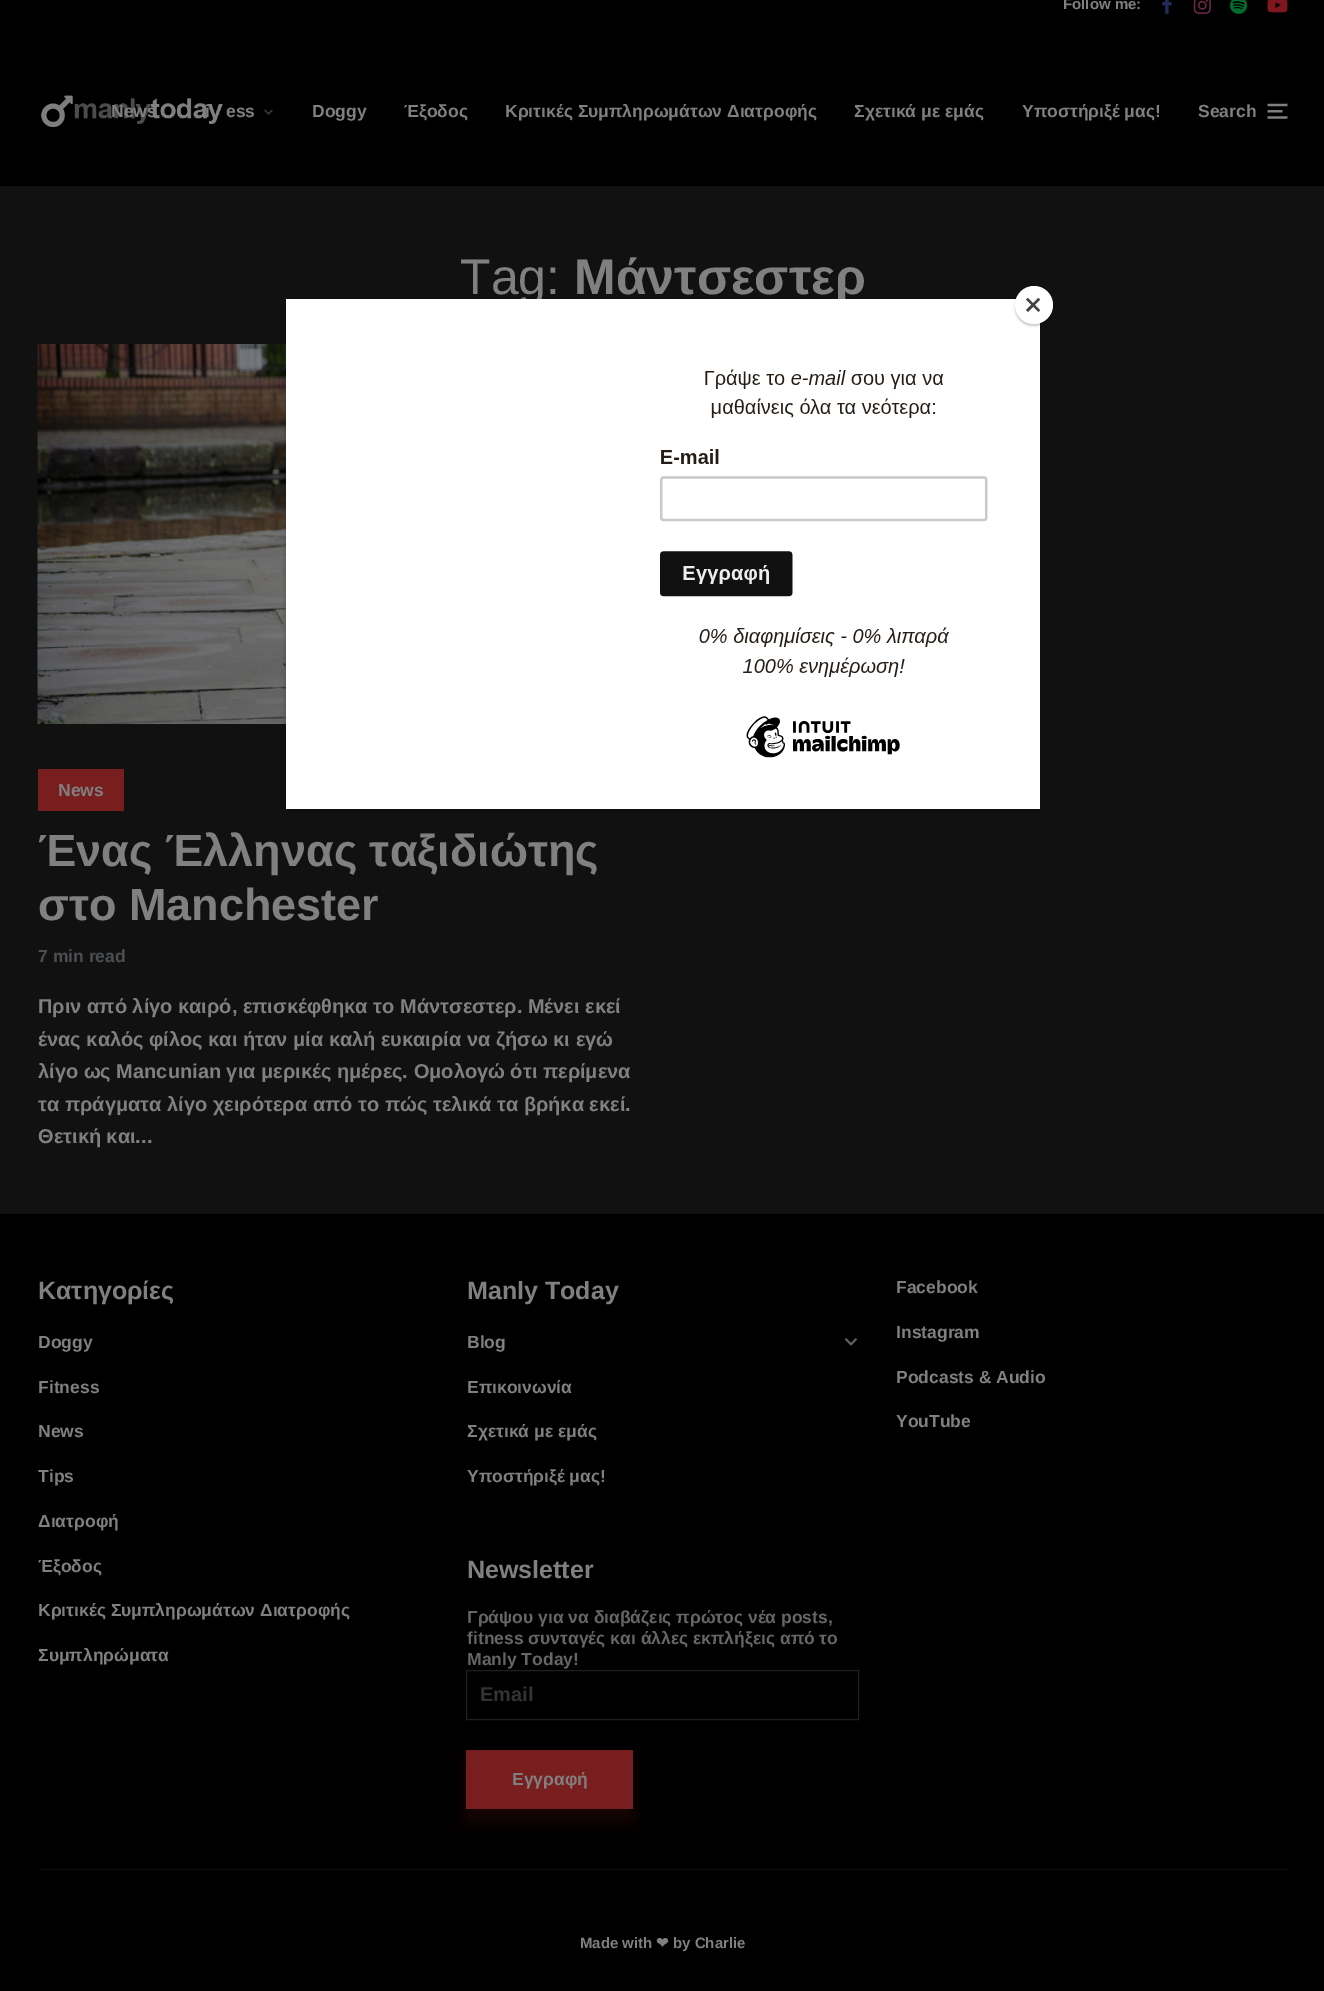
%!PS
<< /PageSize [1324 1991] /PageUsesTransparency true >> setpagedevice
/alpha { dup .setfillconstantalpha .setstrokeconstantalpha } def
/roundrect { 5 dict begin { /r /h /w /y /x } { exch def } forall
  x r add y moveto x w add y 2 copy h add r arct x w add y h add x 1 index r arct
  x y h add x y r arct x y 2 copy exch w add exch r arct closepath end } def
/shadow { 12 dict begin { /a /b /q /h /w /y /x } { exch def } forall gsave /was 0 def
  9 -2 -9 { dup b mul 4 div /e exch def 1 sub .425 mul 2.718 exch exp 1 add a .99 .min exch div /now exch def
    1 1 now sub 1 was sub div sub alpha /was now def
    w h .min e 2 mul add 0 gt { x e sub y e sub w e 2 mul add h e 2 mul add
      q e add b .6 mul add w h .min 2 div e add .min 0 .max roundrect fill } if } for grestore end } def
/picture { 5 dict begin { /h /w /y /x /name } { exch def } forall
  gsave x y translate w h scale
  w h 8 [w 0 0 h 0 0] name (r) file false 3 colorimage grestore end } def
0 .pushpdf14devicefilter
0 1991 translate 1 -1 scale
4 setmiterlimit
0.067 setgray
0 0 1324 1991 rectfill
0 setgray
0 0 1324 186 rectfill
/LiberationSans-Bold [15 0 0 -15 0 0] selectfont
0.502 setgray
1063 9 moveto (Follow me:) show
(img1.rgb) 1162 0 10 14 picture
(img2.rgb) 1193 0 18 14 picture
(img3.rgb) 1230 0 18 14 picture
(img4.rgb) 1267 0 21 13 picture
(img5.rgb) 41 95 182 32 picture
/LiberationSans-Bold [17.5 0 0 -17.5 0 0] selectfont
111 117 moveto (News) show
205 117 moveto (i) show
226 117 moveto (ess) show
(img6.rgb) 264 109 9 6 picture
312 117 moveto (Doggy) show
404 117 moveto (Έξοδος) show
505 117 moveto (Κριτικές Συμπληρωμάτων Διατροφής) show
854 117 moveto (Σχετικά με εμάς) show
1022 117 moveto (Υποστήριξέ μας!) show
1198 117 moveto (Search) show
(img7.rgb) 1267 103 21 16 picture
/LiberationSans-Regular [50 0 0 -50 0 0] selectfont
460 294 moveto (Tag:) show
/LiberationSans-Bold [50 0 0 -50 0 0] selectfont
574 294 moveto (Μάντσεστερ) show
(img8.rgb) 37 344 249 380 picture
0.475 0.118 0.118 setrgbcolor
38 769 86 42 rectfill
/LiberationSans-Bold [17.5 0 0 -17.5 0 0] selectfont
0.502 setgray
58 796 moveto (News) show
/LiberationSans-Bold [45 0 0 -45 0 0] selectfont
38 866 moveto (Ένας Έλληνας ταξιδιώτης) show
38 920 moveto (στο Manchester) show
/LiberationSans-Bold [17.5 0 0 -17.5 0 0] selectfont
0.298 0.31 0.318 setrgbcolor
38 962 moveto (7 min read) show
/LiberationSans-Bold [20 0 0 -20 0 0] selectfont
0.502 setgray
38 1013 moveto (Πριν από λίγο καιρό, επισκέφθηκα το Μάντσεστερ. Μένει εκεί) show
38 1046 moveto (ένας καλός φίλος και ήταν μία καλή ευκαιρία να ζήσω κι εγώ) show
38 1078 moveto (λίγο ως Mancunian για μερικές ημέρες. Ομολογώ ότι περίμενα) show
38 1111 moveto (τα πράγματα λίγο χειρότερα από το πώς τελικά τα βρήκα εκεί.) show
38 1143 moveto (Θετική και...) show
0 setgray
0 1214 1324 777 rectfill
/LiberationSans-Bold [25 0 0 -25 0 0] selectfont
0.502 setgray
38 1299 moveto (Κατηγορίες) show
/LiberationSans-Bold [17.5 0 0 -17.5 0 0] selectfont
38 1348 moveto (Doggy) show
38 1393 moveto (Fitness) show
38 1437 moveto (News) show
38 1482 moveto (Tips) show
38 1527 moveto (Διατροφή) show
38 1572 moveto (Έξοδος) show
38 1616 moveto (Κριτικές Συμπληρωμάτων Διατροφής) show
38 1661 moveto (Συμπληρώματα) show
/LiberationSans-Bold [25 0 0 -25 0 0] selectfont
467 1299 moveto (Manly Today) show
/LiberationSans-Bold [17.5 0 0 -17.5 0 0] selectfont
467 1348 moveto (Blog) show
(img9.rgb) 844 1338 14 8 picture
467 1393 moveto (Επικοινωνία) show
467 1437 moveto (Σχετικά με εμάς) show
467 1482 moveto (Υποστήριξέ μας!) show
/LiberationSans-Bold [25 0 0 -25 0 0] selectfont
467 1578 moveto (Newsletter) show
/LiberationSans-Bold [17.5 0 0 -17.5 0 0] selectfont
0.4 setgray
467 1623 moveto (Γράψου για να διαβάζεις πρώτος νέα posts,) show
467 1644 moveto (fitness συνταγές και άλλες εκπλήξεις από το) show
467 1665 moveto (Manly Today!) show
0.122 setgray
466.5 1670.5 392 49 rectstroke
/LiberationSans-Bold [20 0 0 -20 0 0] selectfont
0.2 setgray
480 1701 moveto (Email) show
0.475 0.118 0.118 setrgbcolor
466 1763 167 58 0 9.5 0.2 shadow
466 1750 167 59 rectfill
/LiberationSans-Bold [17.5 0 0 -17.5 0 0] selectfont
0.502 setgray
512 1785 moveto (Εγγραφή) show
896 1293 moveto (Facebook) show
896 1338 moveto (Instagram) show
896 1383 moveto (Podcasts & Audio) show
896 1427 moveto (YouTube) show
0.051 setgray
38 1869 1250 1 rectfill
/LiberationSans-Bold [15 0 0 -15 0 0] selectfont
0.502 setgray
580 1948 moveto (Made with) show
/DejaVuSans-Bold [15 0 0 -15 0 0] selectfont
656 1948 moveto (❤) show
/LiberationSans-Bold [15 0 0 -15 0 0] selectfont
673 1948 moveto (by Charlie) show
0 setgray
286 301 754 510 0 2.5 0.2 shadow
(img10.rgb) 286 299 754 510 picture
1015 289 38 37 18.5 1 0.2 shadow
1 setgray
newpath 1034 305 19 0 360 arc closepath fill
0.255 setgray
newpath 1038.5 298 moveto 1040 299.5 lineto 1028 312 lineto 1026 310 lineto closepath fill
newpath 1026 299.5 moveto 1028 298 lineto 1040 310 lineto 1038.5 312 lineto closepath fill
.poppdf14devicefilter showpage
